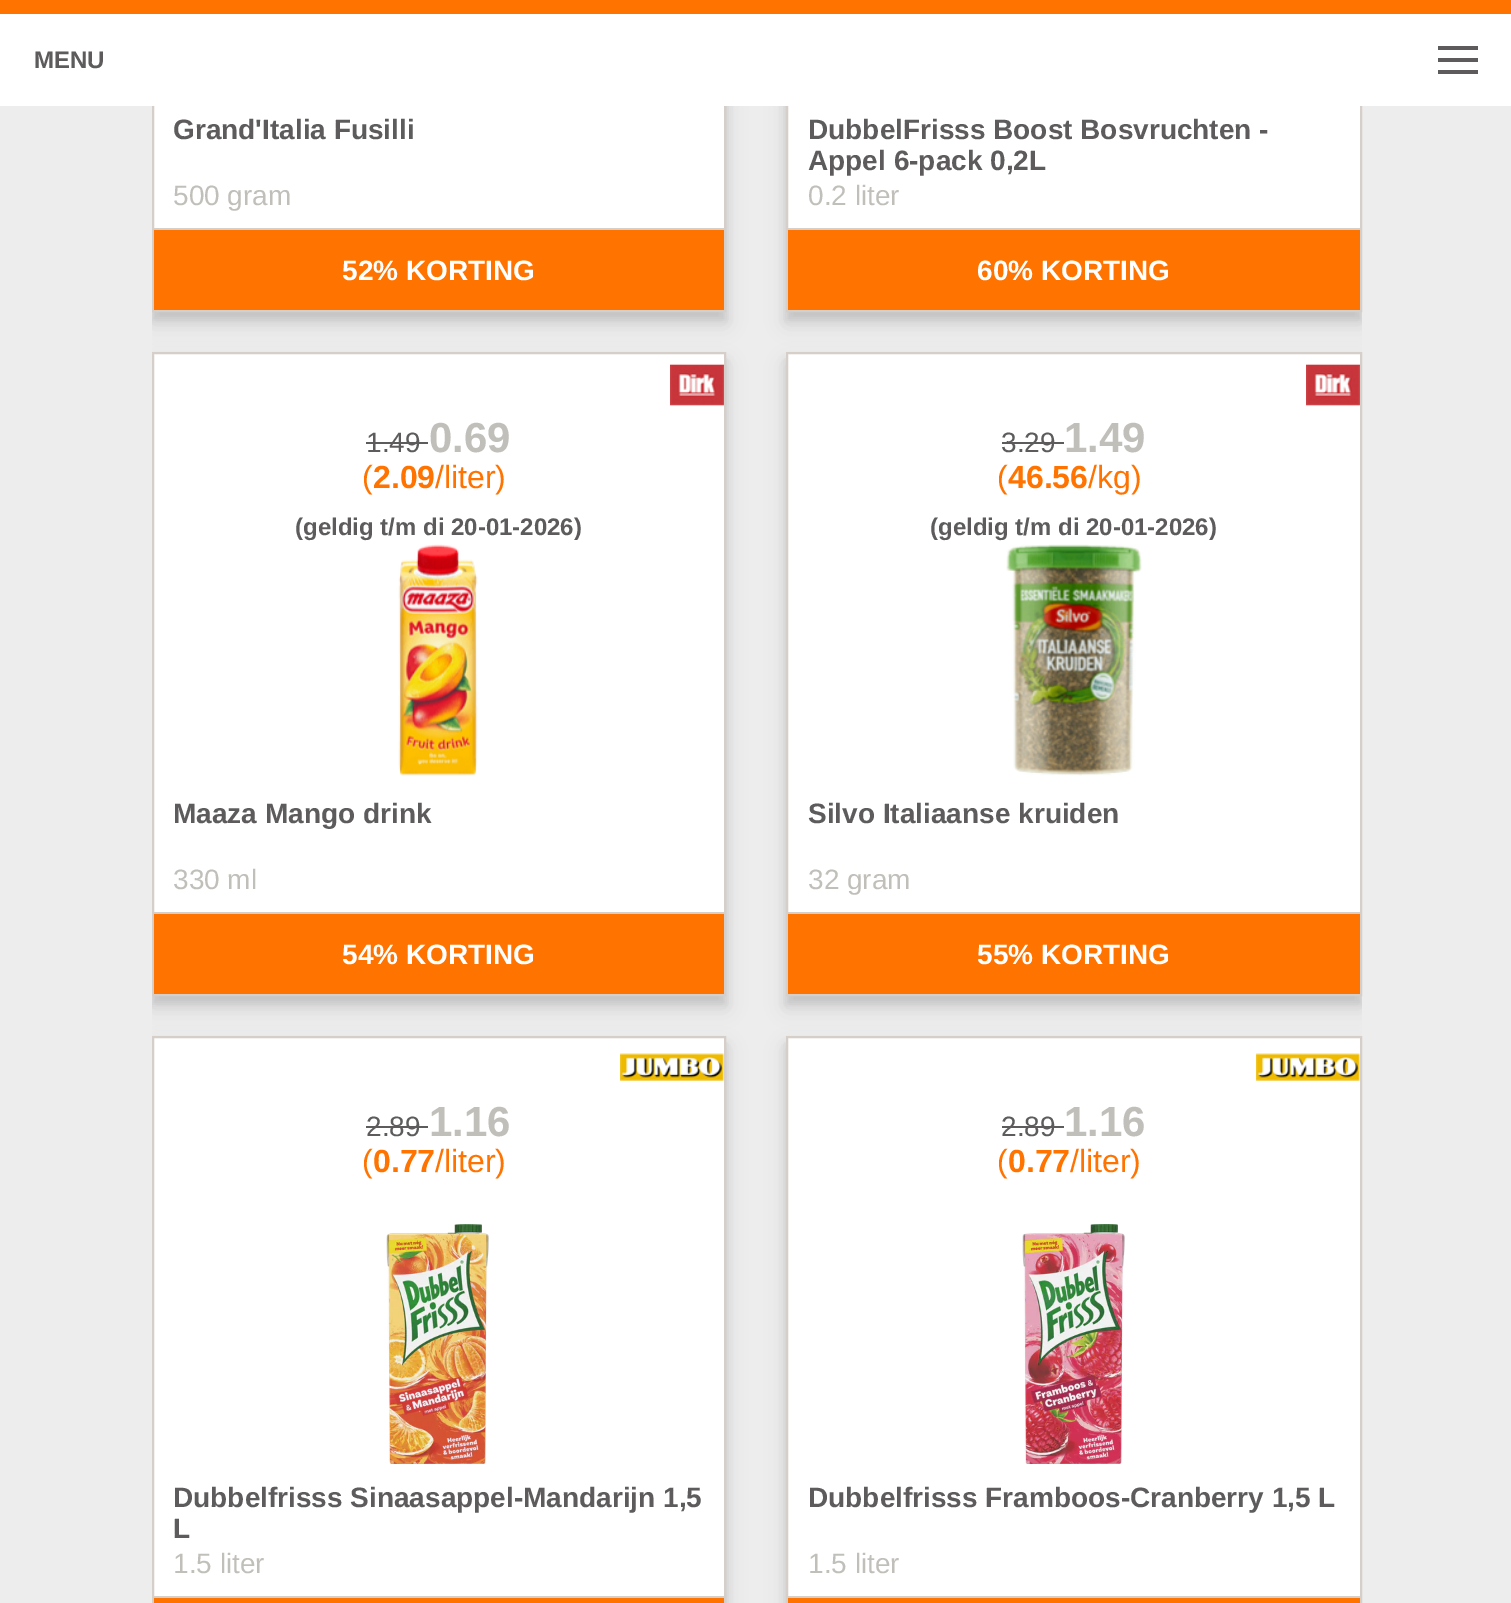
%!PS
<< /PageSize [1511 1603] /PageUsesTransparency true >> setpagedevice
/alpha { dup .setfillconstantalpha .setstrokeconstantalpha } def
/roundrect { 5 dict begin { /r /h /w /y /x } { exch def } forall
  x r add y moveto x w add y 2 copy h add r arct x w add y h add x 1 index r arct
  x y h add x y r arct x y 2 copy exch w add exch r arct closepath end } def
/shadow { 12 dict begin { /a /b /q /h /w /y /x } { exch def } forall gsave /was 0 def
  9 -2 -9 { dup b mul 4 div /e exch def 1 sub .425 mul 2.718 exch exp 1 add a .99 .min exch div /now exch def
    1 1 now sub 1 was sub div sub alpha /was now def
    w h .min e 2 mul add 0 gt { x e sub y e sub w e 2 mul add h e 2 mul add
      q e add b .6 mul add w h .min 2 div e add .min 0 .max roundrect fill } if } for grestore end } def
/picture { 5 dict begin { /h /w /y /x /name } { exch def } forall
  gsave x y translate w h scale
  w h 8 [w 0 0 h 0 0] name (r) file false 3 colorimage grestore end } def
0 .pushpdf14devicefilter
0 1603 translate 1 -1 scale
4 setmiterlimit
0.929 setgray
0 0 1511 1603 rectfill
gsave
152 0 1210 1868 rectclip
0 setgray
152 -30 574 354 0 10 0.1 shadow
152 -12 574 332 0 4 0.1 shadow
grestore
1 setgray
154 106 570 122 rectfill
0.839 0.812 0.788 setrgbcolor
2 setlinewidth
153 -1 572 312 rectstroke
gsave
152 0 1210 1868 rectclip
0 setgray
786 -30 576 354 0 10 0.1 shadow
786 -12 576 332 0 4 0.1 shadow
grestore
1 setgray
788 106 572 122 rectfill
0.839 0.812 0.788 setrgbcolor
787 -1 574 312 rectstroke
1 setgray
0 14 1511 92 rectfill
1 0.451 0 setrgbcolor
0 0 1511 14 rectfill
0.365 0.357 0.357 setrgbcolor
1438 46 40 4 rectfill
/LiberationSans-Bold [24 0 0 -24 0 0] selectfont
34 68 moveto (MENU) show
1438 58 40 4 rectfill
1438 70 40 4 rectfill
0.839 0.812 0.788 setrgbcolor
154 228 570 2 rectfill
/LiberationSans-Bold [28 0 0 -28 0 0] selectfont
0.365 0.357 0.357 setrgbcolor
173 139 moveto (Grand'Italia Fusilli) show
/LiberationSans-Regular [28 0 0 -28 0 0] selectfont
0.757 0.749 0.729 setrgbcolor
173 205 moveto (500 gram) show
1 0.451 0 setrgbcolor
154 230 570 80 rectfill
/LiberationSans-Bold [28 0 0 -28 0 0] selectfont
1 setgray
342 280 moveto (52% KORTING) show
0.839 0.812 0.788 setrgbcolor
788 228 572 2 rectfill
0.365 0.357 0.357 setrgbcolor
808 139 moveto (DubbelFrisss Boost Bosvruchten -) show
808 170 moveto (Appel 6-pack 0,2L) show
/LiberationSans-Regular [28 0 0 -28 0 0] selectfont
0.757 0.749 0.729 setrgbcolor
808 205 moveto (0.2 liter) show
1 0.451 0 setrgbcolor
788 230 572 80 rectfill
/LiberationSans-Bold [28 0 0 -28 0 0] selectfont
1 setgray
977 280 moveto (60% KORTING) show
gsave
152 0 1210 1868 rectclip
0 setgray
152 364 574 644 0 10 0.1 shadow
152 360 574 644 0 4 0.1 shadow
grestore
154 354 570 558 rectfill
0.839 0.812 0.788 setrgbcolor
153 353 572 642 rectstroke
(img1.rgb) 670 364 54 42 picture
154 912 570 2 rectfill
/LiberationSans-Regular [28 0 0 -28 0 0] selectfont
0.365 0.357 0.357 setrgbcolor
366 452 moveto (1.49) show
366 442 62 2 rectfill
/LiberationSans-Bold [42 0 0 -42 0 0] selectfont
0.757 0.749 0.729 setrgbcolor
429 452 moveto (0.69) show
/LiberationSans-Regular [32 0 0 -32 0 0] selectfont
1 0.451 0 setrgbcolor
362 488 moveto (\() show
/LiberationSans-Bold [32 0 0 -32 0 0] selectfont
373 488 moveto (2.09) show
/LiberationSans-Regular [32 0 0 -32 0 0] selectfont
435 488 moveto (/liter\)) show
/LiberationSans-Bold [24 0 0 -24 0 0] selectfont
0.365 0.357 0.357 setrgbcolor
295 535 moveto (\(geldig t/m di 20-01-2026\)) show
(img2.rgb) 398 544 80 232 picture
/LiberationSans-Bold [28 0 0 -28 0 0] selectfont
173 823 moveto (Maaza Mango drink) show
/LiberationSans-Regular [28 0 0 -28 0 0] selectfont
0.757 0.749 0.729 setrgbcolor
173 889 moveto (330 ml) show
1 0.451 0 setrgbcolor
154 914 570 80 rectfill
/LiberationSans-Bold [28 0 0 -28 0 0] selectfont
1 setgray
342 964 moveto (54% KORTING) show
gsave
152 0 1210 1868 rectclip
0 setgray
786 364 576 644 0 10 0.1 shadow
786 360 576 644 0 4 0.1 shadow
grestore
788 354 572 558 rectfill
0.839 0.812 0.788 setrgbcolor
787 353 574 642 rectstroke
(img1.rgb) 1306 364 54 42 picture
788 912 572 2 rectfill
/LiberationSans-Regular [28 0 0 -28 0 0] selectfont
0.365 0.357 0.357 setrgbcolor
1001 452 moveto (3.29) show
1002 442 62 2 rectfill
/LiberationSans-Bold [42 0 0 -42 0 0] selectfont
0.757 0.749 0.729 setrgbcolor
1064 452 moveto (1.49) show
/LiberationSans-Regular [32 0 0 -32 0 0] selectfont
1 0.451 0 setrgbcolor
997 488 moveto (\() show
/LiberationSans-Bold [32 0 0 -32 0 0] selectfont
1008 488 moveto (46.56) show
/LiberationSans-Regular [32 0 0 -32 0 0] selectfont
1088 488 moveto (/kg\)) show
/LiberationSans-Bold [24 0 0 -24 0 0] selectfont
0.365 0.357 0.357 setrgbcolor
930 535 moveto (\(geldig t/m di 20-01-2026\)) show
(img3.rgb) 1006 544 136 232 picture
/LiberationSans-Bold [28 0 0 -28 0 0] selectfont
808 823 moveto (Silvo Italiaanse kruiden) show
/LiberationSans-Regular [28 0 0 -28 0 0] selectfont
0.757 0.749 0.729 setrgbcolor
808 889 moveto (32 gram) show
1 0.451 0 setrgbcolor
788 914 572 80 rectfill
/LiberationSans-Bold [28 0 0 -28 0 0] selectfont
1 setgray
977 964 moveto (55% KORTING) show
gsave
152 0 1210 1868 rectclip
0 setgray
152 1048 574 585 0 10 0.1 shadow
152 1044 574 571 0 4 0.1 shadow
grestore
154 1038 570 558 rectfill
0.839 0.812 0.788 setrgbcolor
153 1037 572 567 rectstroke
(img4.rgb) 620 1053 104 28 picture
154 1596 570 2 rectfill
/LiberationSans-Regular [28 0 0 -28 0 0] selectfont
0.365 0.357 0.357 setrgbcolor
366 1136 moveto (2.89) show
366 1126 62 2 rectfill
/LiberationSans-Bold [42 0 0 -42 0 0] selectfont
0.757 0.749 0.729 setrgbcolor
429 1136 moveto (1.16) show
/LiberationSans-Regular [32 0 0 -32 0 0] selectfont
1 0.451 0 setrgbcolor
362 1172 moveto (\() show
/LiberationSans-Bold [32 0 0 -32 0 0] selectfont
373 1172 moveto (0.77) show
/LiberationSans-Regular [32 0 0 -32 0 0] selectfont
435 1172 moveto (/liter\)) show
(img5.rgb) 386 1224 103 240 picture
/LiberationSans-Bold [28 0 0 -28 0 0] selectfont
0.365 0.357 0.357 setrgbcolor
173 1507 moveto (Dubbelfrisss Sinaasappel-Mandarijn 1,5) show
173 1538 moveto (L) show
/LiberationSans-Regular [28 0 0 -28 0 0] selectfont
0.757 0.749 0.729 setrgbcolor
173 1573 moveto (1.5 liter) show
1 0.451 0 setrgbcolor
154 1598 570 5 rectfill
gsave
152 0 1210 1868 rectclip
0 setgray
786 1048 576 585 0 10 0.1 shadow
786 1044 576 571 0 4 0.1 shadow
grestore
1 setgray
788 1038 572 558 rectfill
0.839 0.812 0.788 setrgbcolor
787 1037 574 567 rectstroke
(img4.rgb) 1256 1053 104 28 picture
788 1596 572 2 rectfill
0.365 0.357 0.357 setrgbcolor
1001 1136 moveto (2.89) show
1002 1126 62 2 rectfill
/LiberationSans-Bold [42 0 0 -42 0 0] selectfont
0.757 0.749 0.729 setrgbcolor
1064 1136 moveto (1.16) show
/LiberationSans-Regular [32 0 0 -32 0 0] selectfont
1 0.451 0 setrgbcolor
997 1172 moveto (\() show
/LiberationSans-Bold [32 0 0 -32 0 0] selectfont
1008 1172 moveto (0.77) show
/LiberationSans-Regular [32 0 0 -32 0 0] selectfont
1070 1172 moveto (/liter\)) show
(img6.rgb) 1022 1224 103 240 picture
/LiberationSans-Bold [28 0 0 -28 0 0] selectfont
0.365 0.357 0.357 setrgbcolor
808 1507 moveto (Dubbelfrisss Framboos-Cranberry 1,5 L) show
/LiberationSans-Regular [28 0 0 -28 0 0] selectfont
0.757 0.749 0.729 setrgbcolor
808 1573 moveto (1.5 liter) show
1 0.451 0 setrgbcolor
788 1598 572 5 rectfill
.poppdf14devicefilter showpage
